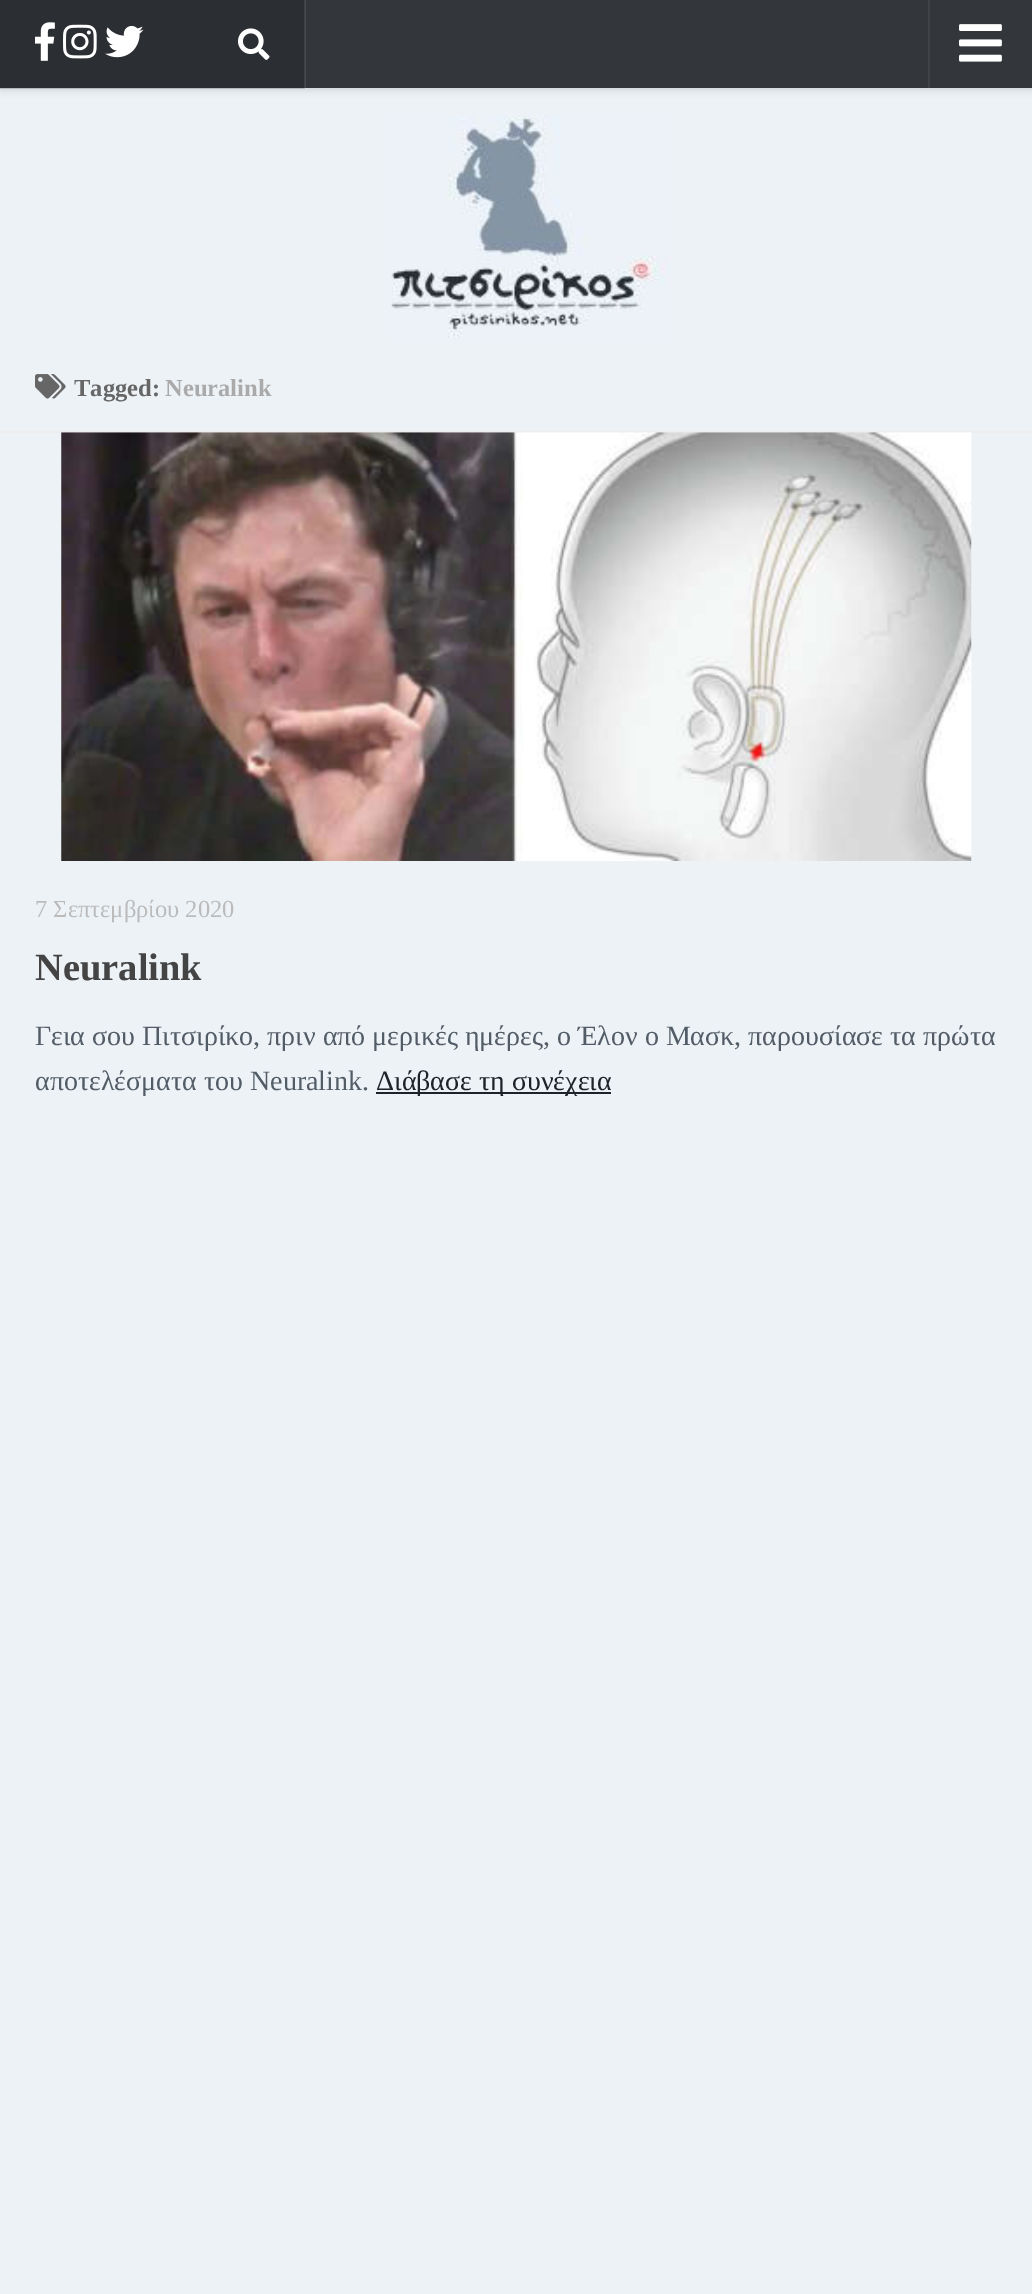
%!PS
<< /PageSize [1032 2294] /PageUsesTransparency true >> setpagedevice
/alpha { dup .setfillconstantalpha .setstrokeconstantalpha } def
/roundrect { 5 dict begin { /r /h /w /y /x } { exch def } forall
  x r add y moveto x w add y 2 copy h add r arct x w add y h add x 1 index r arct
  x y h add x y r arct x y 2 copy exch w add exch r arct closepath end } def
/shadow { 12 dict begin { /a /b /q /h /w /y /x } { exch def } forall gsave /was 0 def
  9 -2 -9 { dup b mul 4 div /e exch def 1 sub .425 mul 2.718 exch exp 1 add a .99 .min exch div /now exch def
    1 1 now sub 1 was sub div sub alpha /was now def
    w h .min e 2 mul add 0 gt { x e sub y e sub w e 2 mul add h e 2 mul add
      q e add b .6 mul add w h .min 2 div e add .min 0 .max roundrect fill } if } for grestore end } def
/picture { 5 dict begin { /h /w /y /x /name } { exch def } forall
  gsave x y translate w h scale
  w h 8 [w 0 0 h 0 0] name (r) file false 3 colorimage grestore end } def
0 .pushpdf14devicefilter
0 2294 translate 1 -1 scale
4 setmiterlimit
0.929 0.949 0.969 setrgbcolor
0 0 1032 2294 rectfill
0.941 0.957 0.973 setrgbcolor
newpath 0 88 moveto 0 89 lineto 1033 89 lineto 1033 2 lineto 1032 2 lineto 1032 88 lineto closepath fill
0 setgray
0 0 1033 88 0 4.5 0.2 shadow
0.2 0.212 0.231 setrgbcolor
0 0 1032 88 rectfill
0.1 alpha
1 setgray
304 0 2 89 rectfill
0.15 alpha
0 setgray
0 0 305 89 rectfill
1 alpha
(img1.rgb) 35 22 20 39 picture
(img2.rgb) 63 24 34 35 picture
(img3.rgb) 105 25 39 33 picture
(img4.rgb) 238 28 32 32 picture
0.247 0.259 0.278 setrgbcolor
928 0 2 88 rectfill
(img5.rgb) 959 24 43 38 picture
(img6.rgb) 391 115 279 224 picture
0.933 setgray
0 431 1032 2 rectfill
(img7.rgb) 35 374 31 25 picture
/LiberationSerif-Bold [24.5 0 0 -24.5 0 0] selectfont
0.4 setgray
74 396 moveto (Tagged:) show
0.667 setgray
165 396 moveto (Neuralink) show
(img8.rgb) 61 432 911 429 picture
/LiberationSerif-Regular [24.5 0 0 -24.5 0 0] selectfont
0.733 setgray
35 917 moveto (7 Σεπτεμβρίου 2020) show
/LiberationSerif-Bold [38.5 0 0 -38.5 0 0] selectfont
0.267 setgray
35 980 moveto (Neuralink) show
/LiberationSerif-Regular [28 0 0 -28 0 0] selectfont
0.322 0.361 0.4 setrgbcolor
35 1045 moveto (Γεια σου Πιτσιρίκο, πριν από μερικές ημέρες, ο Έλον ο Μασκ, παρουσίασε τα πρώτα) show
35 1090 moveto (αποτελέσματα του Neuralink.) show
0.118 0.137 0.161 setrgbcolor
376 1092 235 2 rectfill
376 1090 moveto (Διάβασε τη συνέχεια) show
.poppdf14devicefilter showpage
